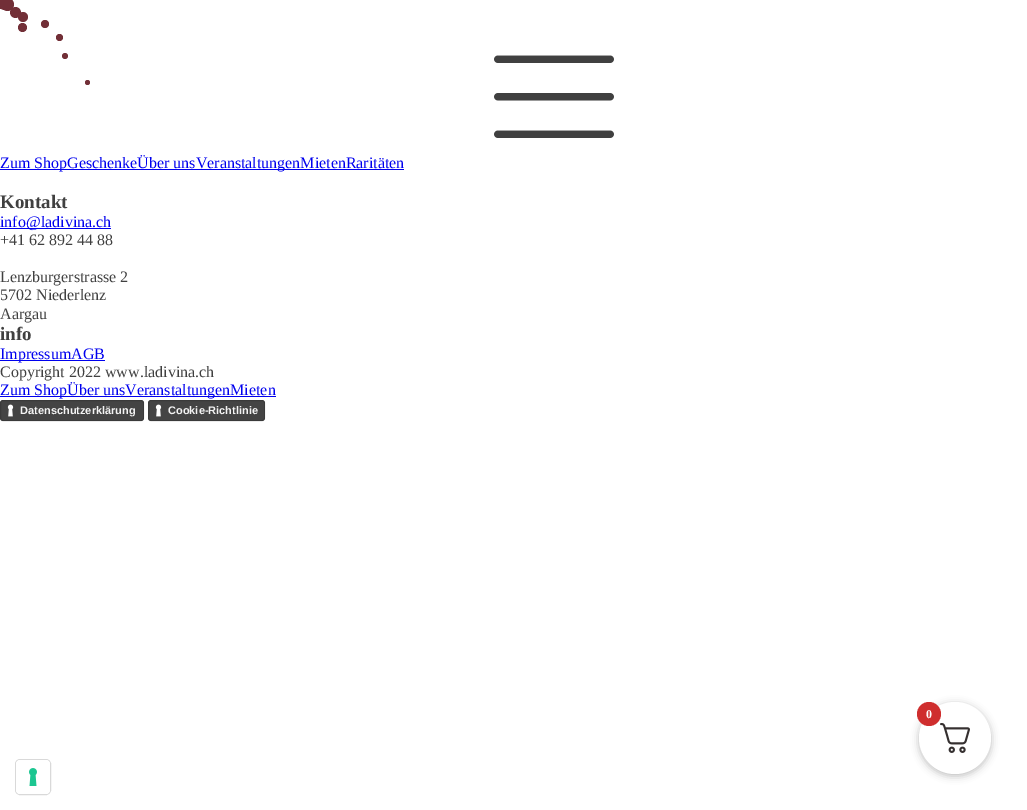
%!PS
<< /PageSize [1027 810] /PageUsesTransparency true >> setpagedevice
/alpha { dup .setfillconstantalpha .setstrokeconstantalpha } def
/roundrect { 5 dict begin { /r /h /w /y /x } { exch def } forall
  x r add y moveto x w add y 2 copy h add r arct x w add y h add x 1 index r arct
  x y h add x y r arct x y 2 copy exch w add exch r arct closepath end } def
/shadow { 12 dict begin { /a /b /q /h /w /y /x } { exch def } forall gsave /was 0 def
  9 -2 -9 { dup b mul 4 div /e exch def 1 sub .425 mul 2.718 exch exp 1 add a .99 .min exch div /now exch def
    1 1 now sub 1 was sub div sub alpha /was now def
    w h .min e 2 mul add 0 gt { x e sub y e sub w e 2 mul add h e 2 mul add
      q e add b .6 mul add w h .min 2 div e add .min 0 .max roundrect fill } if } for grestore end } def
/picture { 5 dict begin { /h /w /y /x /name } { exch def } forall
  gsave x y translate w h scale
  w h 8 [w 0 0 h 0 0] name (r) file false 3 colorimage grestore end } def
0 .pushpdf14devicefilter
0 810 translate 1 -1 scale
4 setmiterlimit
1 setgray
0 0 1027 810 rectfill
0.447 0.184 0.216 setrgbcolor
newpath 0 0 9 0 360 arc closepath fill
newpath 5 3 7 0 360 arc closepath fill
newpath 7.5 4.5 6.5 0 360 arc closepath fill
newpath 15.5 12.5 5.5 0 360 arc closepath fill
newpath 23 17 5 0 360 arc closepath fill
newpath 22.5 27.5 4.5 0 360 arc closepath fill
newpath 45 24 4 0 360 arc closepath fill
newpath 59.5 37.5 3.5 0 360 arc closepath fill
newpath 65 56 3 0 360 arc closepath fill
newpath 87.5 82.5 2.5 0 360 arc closepath fill
(img1.rgb) 494 55 120 83 picture
0 0 0.933 setrgbcolor
0 169 300 1 rectfill
/LiberationSerif-Regular [16 0 0 -16 0 0] selectfont
0 168 moveto (Zum ShopGeschenkeÜber unsVeranstaltungenMietenRaritäten) show
300 169 104 1 rectfill
/LiberationSerif-Bold [19 0 0 -19 0 0] selectfont
0.251 setgray
0 208 moveto (Kontakt) show
0 0 0.933 setrgbcolor
0 228 111 1 rectfill
/LiberationSerif-Regular [16 0 0 -16 0 0] selectfont
0 227 moveto (info@ladivina.ch) show
0.251 setgray
0 245 moveto (+41 62 892 44 88) show
0 282 moveto (Lenzburgerstrasse 2) show
0 300 moveto (5702 Niederlenz) show
0 319 moveto (Aargau) show
/LiberationSerif-Bold [19 0 0 -19 0 0] selectfont
0 340 moveto (info) show
0 0 0.933 setrgbcolor
0 360 105 1 rectfill
/LiberationSerif-Regular [16 0 0 -16 0 0] selectfont
0 359 moveto (ImpressumAGB) show
0.251 setgray
0 377 moveto (Copyright 2022 www.ladivina.ch) show
0 0 0.933 setrgbcolor
0 396 276 1 rectfill
0 395 moveto (Zum ShopÜber unsVeranstaltungenMieten) show
0 setgray
1 402 142 19 2 0.5 0.15 shadow
0.267 setgray
0 400 144 21 3 roundrect fill
(img2.rgb) 7 404 7 13 picture
0.15 alpha
0 setgray
0.5 400.5 143 20 2.5 roundrect stroke
/LiberationSans-Bold [11 0 0 -11 0 0] selectfont
1 alpha
0.957 setgray
20 414 moveto (Datenschutzerklärung) show
0 setgray
149 402 115 19 2 0.5 0.15 shadow
0.267 setgray
148 400 117 21 3 roundrect fill
(img2.rgb) 155 404 7 13 picture
0.15 alpha
0 setgray
148.5 400.5 116 20 2.5 roundrect stroke
1 alpha
0.957 setgray
168 414 moveto (Cookie-Richtlinie) show
0 setgray
919 704 72 72 36 4 0.25 shadow
1 setgray
newpath 955 738 36 0 360 arc closepath fill
(img3.rgb) 940 723 30 30 picture
0.812 0.18 0.18 setrgbcolor
newpath 929 714 12 0 360 arc closepath fill
/LiberationSerif-Bold [12 0 0 -12 0 0] selectfont
1 setgray
926 718 moveto (0) show
0.851 setgray
15.5 759.5 35 35 4.5 roundrect stroke
1 setgray
16 760 34 34 4 roundrect fill
(img4.rgb) 29 768 8 18 picture
.poppdf14devicefilter showpage
